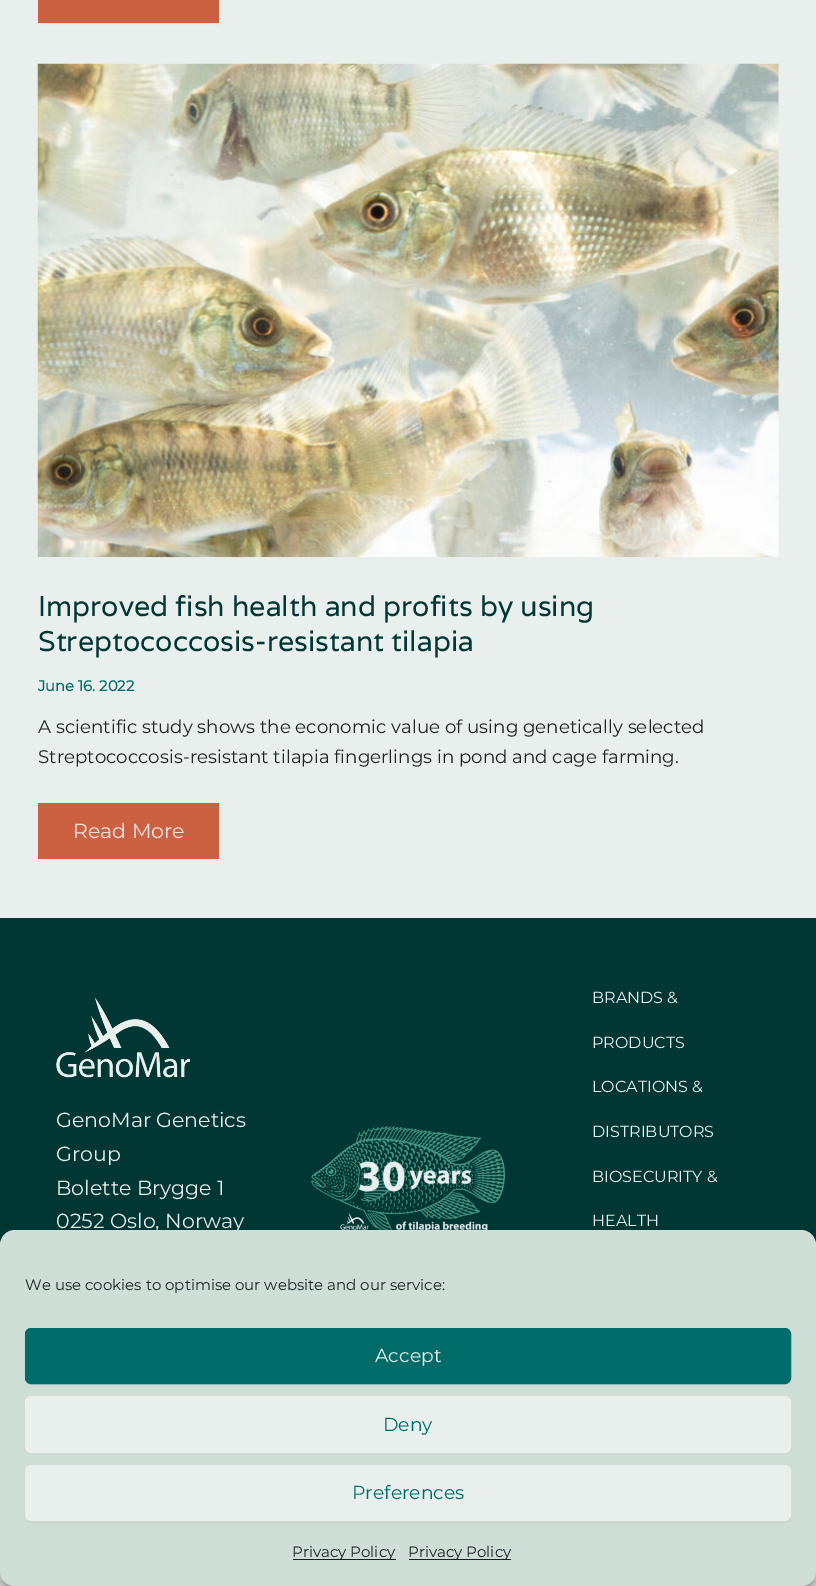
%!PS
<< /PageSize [816 1586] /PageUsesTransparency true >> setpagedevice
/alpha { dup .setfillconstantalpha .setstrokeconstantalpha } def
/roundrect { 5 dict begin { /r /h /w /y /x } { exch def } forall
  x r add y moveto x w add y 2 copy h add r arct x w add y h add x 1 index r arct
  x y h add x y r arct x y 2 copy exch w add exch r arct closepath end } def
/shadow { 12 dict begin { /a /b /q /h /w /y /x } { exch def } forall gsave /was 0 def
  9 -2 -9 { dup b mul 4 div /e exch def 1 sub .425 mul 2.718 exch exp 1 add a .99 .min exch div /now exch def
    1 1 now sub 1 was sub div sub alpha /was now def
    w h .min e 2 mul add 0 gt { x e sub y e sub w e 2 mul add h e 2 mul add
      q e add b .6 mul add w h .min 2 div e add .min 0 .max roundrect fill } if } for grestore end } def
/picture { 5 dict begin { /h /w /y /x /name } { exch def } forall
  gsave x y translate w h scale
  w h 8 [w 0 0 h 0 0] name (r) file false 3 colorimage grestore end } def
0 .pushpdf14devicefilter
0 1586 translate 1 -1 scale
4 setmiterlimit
0.914 0.937 0.929 setrgbcolor
0 0 816 1586 rectfill
0 setgray
38 -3 181 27 0 1 0.05 shadow
0.8 0.38 0.259 setrgbcolor
38 0 181 23 rectfill
(img1.rgb) 37 63 742 495 picture
/Varela-Regular [28.5 0 0 -28.5 0 0] selectfont
0 0.212 0.204 setrgbcolor
38 616 moveto (Improved fish health and profits by using) show
38 651 moveto (Streptococcosis-resistant tilapia) show
/Montserrat-Bold [14.75 0 0 -14.75 0 0] selectfont
0 0.424 0.412 setrgbcolor
38 691 moveto (June 16. 2022) show
/Montserrat-Thin [18.25 0 0 -18.25 0 0] selectfont
0.133 setgray
38 733 moveto (A scientific study shows the economic value of using genetically selected) show
38 763 moveto (Streptococcosis-resistant tilapia fingerlings in pond and cage farming.) show
0 setgray
38 804 181 56 0 1 0.05 shadow
0.8 0.38 0.259 setrgbcolor
38 803 181 56 rectfill
/Montserrat-Thin [20.5 0 0 -20.5 0 0] selectfont
0.965 0.89 0.882 setrgbcolor
73 838 moveto (Read More) show
0 0.212 0.204 setrgbcolor
0 918 816 327 rectfill
(img2.rgb) 56 997 134 81 picture
0.914 0.937 0.929 setrgbcolor
56 1127 moveto (GenoMar Genetics) show
56 1161 moveto (Group) show
56 1195 moveto (Bolette Brygge 1) show
56 1228 moveto (0252 Oslo, Norway) show
(img3.rgb) 311 1126 194 104 picture
/Montserrat-Thin [16 0 0 -16 0 0] selectfont
592 1003 moveto (BRANDS &) show
592 1048 moveto (PRODUCTS) show
592 1092 moveto (LOCATIONS &) show
592 1137 moveto (DISTRIBUTORS) show
592 1182 moveto (BIOSECURITY &) show
592 1226 moveto (HEALTH) show
0 setgray
0 1238 816 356 15 4 0.23 shadow
0 1243 816 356 15 12.5 0.19 shadow
0.812 0.875 0.847 setrgbcolor
0 1230 816 356 15 roundrect fill
/Montserrat-Thin [15 0 0 -15 0 0] selectfont
0.098 0.118 0.137 setrgbcolor
25 1290 moveto (We use cookies to optimise our website and our service:) show
0 setgray
25 1329 766 56 6 1 0.05 shadow
0 0.424 0.412 setrgbcolor
25.5 1328.5 765 55 5.5 roundrect gsave fill grestore
stroke
/Montserrat-Thin [18.75 0 0 -18.75 0 0] selectfont
0.914 0.937 0.929 setrgbcolor
375 1362 moveto (Accept) show
0 setgray
25 1398 766 56 6 1 0.05 shadow
0.914 0.937 0.929 setrgbcolor
25.5 1396.5 765 56 5.5 roundrect gsave fill grestore
stroke
0 0.424 0.412 setrgbcolor
383 1431 moveto (Deny) show
0 setgray
25 1466 766 57 6 1 0.05 shadow
0.914 0.937 0.929 setrgbcolor
25.5 1465.5 765 55 5.5 roundrect gsave fill grestore
stroke
0 0.424 0.412 setrgbcolor
352 1499 moveto (Preferences) show
0.098 0.118 0.137 setrgbcolor
293 1559 103 1 rectfill
/Montserrat-Thin [15 0 0 -15 0 0] selectfont
292 1557 moveto (Privacy Policy) show
409 1559 102 1 rectfill
408 1557 moveto (Privacy Policy) show
.poppdf14devicefilter showpage
